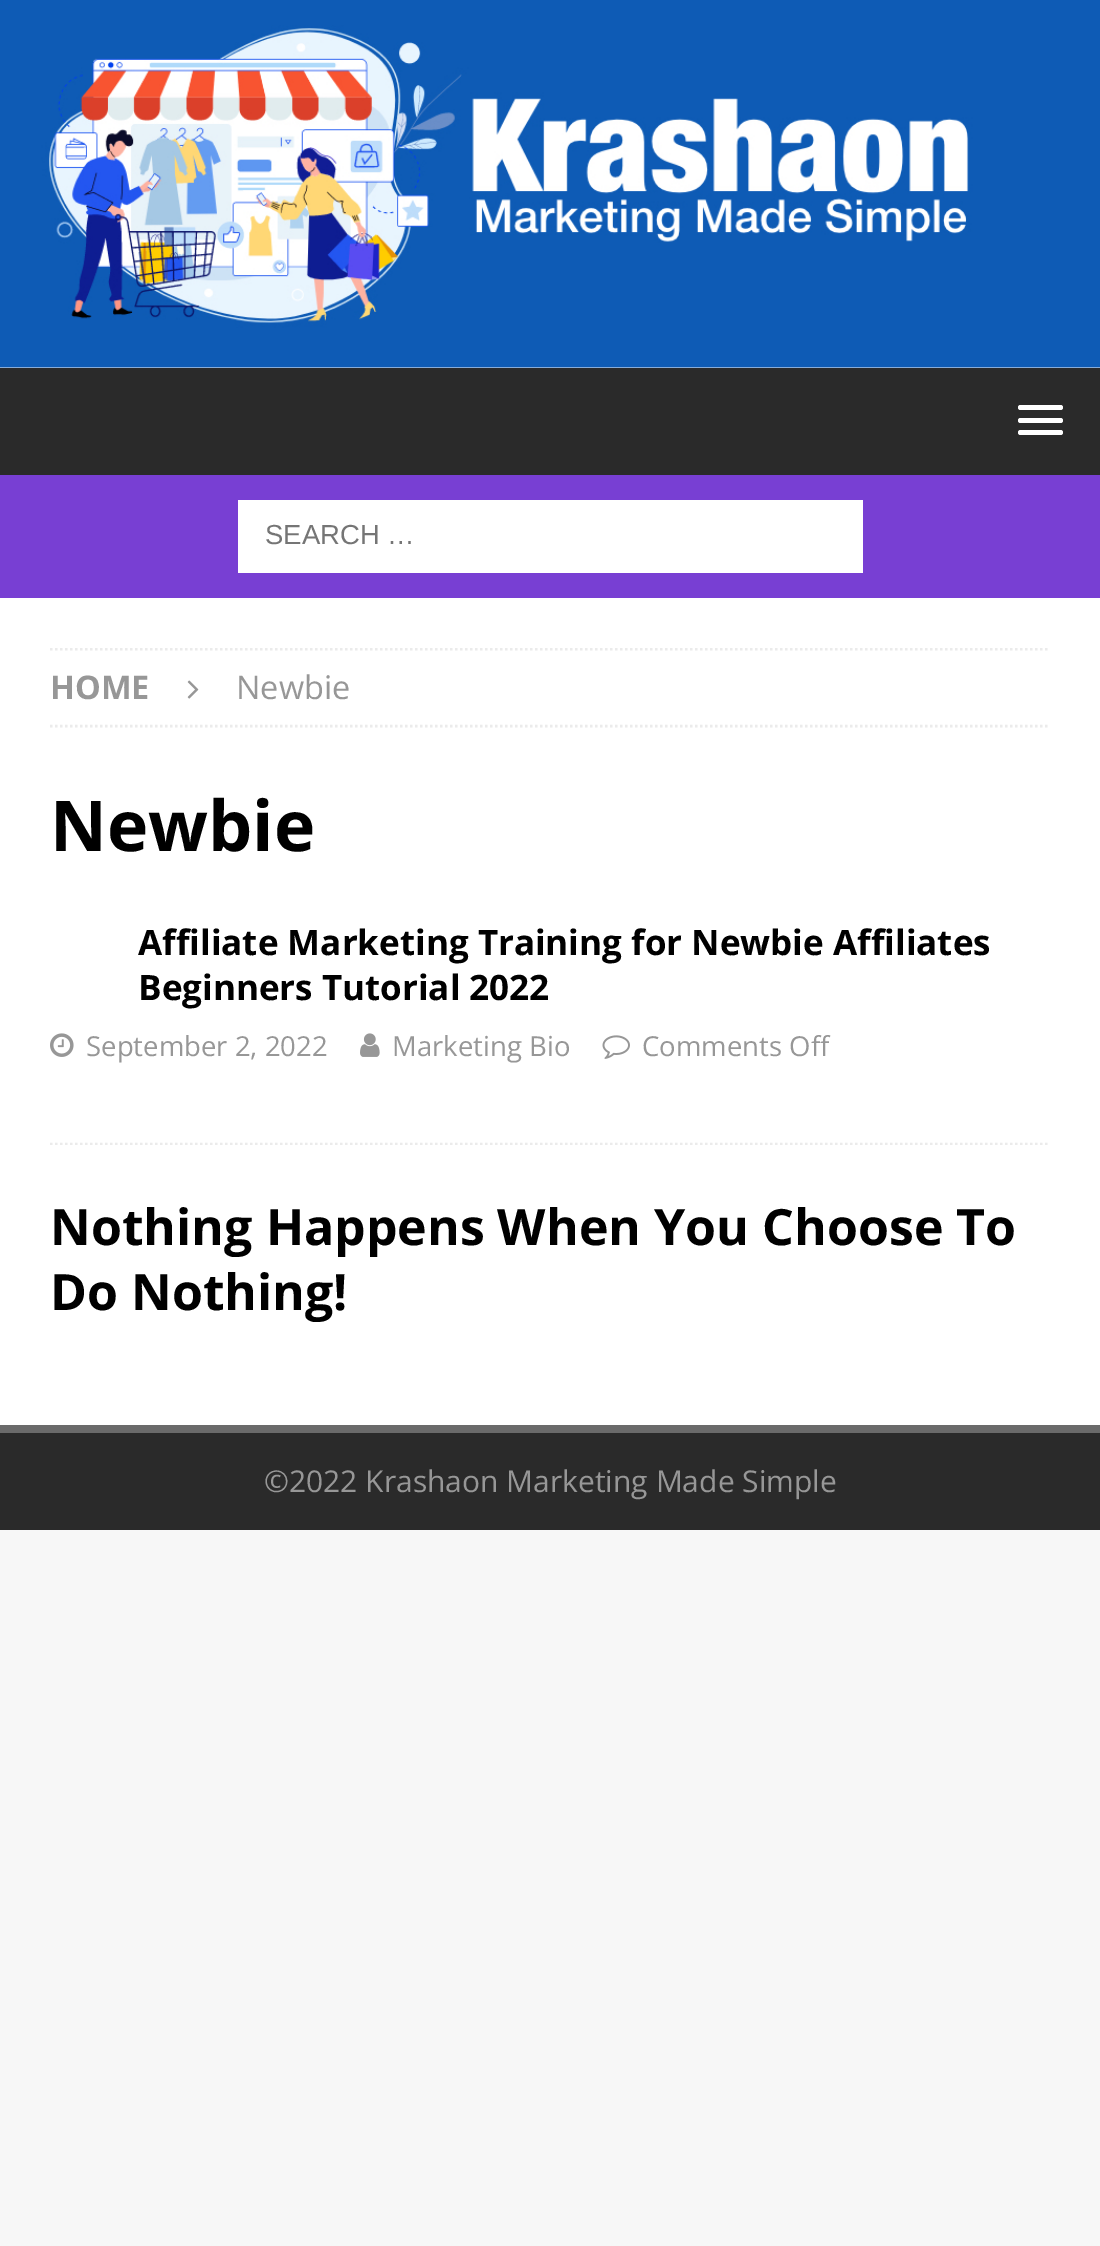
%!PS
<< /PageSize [1100 2246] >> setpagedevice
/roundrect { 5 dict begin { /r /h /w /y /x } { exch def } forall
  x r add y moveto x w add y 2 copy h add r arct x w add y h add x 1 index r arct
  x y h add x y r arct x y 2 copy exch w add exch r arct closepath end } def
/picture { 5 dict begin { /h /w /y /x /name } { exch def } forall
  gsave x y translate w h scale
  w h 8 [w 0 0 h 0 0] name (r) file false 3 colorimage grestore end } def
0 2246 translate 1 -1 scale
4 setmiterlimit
0.969 setgray
0 0 1100 2246 rectfill
1 setgray
0 367 1100 1 rectfill
(img1.rgb) 0 0 1100 368 picture
0.165 setgray
0 368 1100 107 rectfill
1 setgray
1018 405 45 5 2.5 roundrect fill
1018 418 45 5 2.5 roundrect fill
1018 430 45 5 2.5 roundrect fill
0.471 0.247 0.827 setrgbcolor
0 475 1100 123 rectfill
1 setgray
238 500 625 73 rectfill
/LiberationSans-Regular [27.5 0 0 -27.5 0 0] selectfont
0.459 setgray
265 544 moveto (SEARCH …) show
1 setgray
0 598 1100 827 rectfill
gsave
50 648 1000 497 rectclip
0.922 setgray
2.5 setlinewidth
[2.5 2.5] 0 setdash
newpath 50 649 moveto 1050 649 lineto stroke
grestore
0.922 setgray
2.5 setlinewidth
[2.5 2.5] 0 setdash
newpath 50 726 moveto 1050 726 lineto stroke
/OpenSans-Bold [32.5 0 0 -32.5 0 0] selectfont
0.592 setgray
50 699 moveto (HOME) show
(img2.rgb) 187 680 12 19 picture
/OpenSans-Regular [32.5 0 0 -32.5 0 0] selectfont
236 699 moveto (Newbie) show
/OpenSans-Bold [70 0 0 -70 0 0] selectfont
0 setgray
50 851 moveto (Newbie) show
gsave
50 648 1000 497 rectclip
0.922 setgray
newpath 50 1144 moveto 1050 1144 lineto stroke
grestore
/OpenSans-Bold [35 0 0 -35 0 0] selectfont
138 955 moveto (Affiliate Marketing Training for Newbie Affiliates) show
138 1000 moveto (Beginners Tutorial 2022) show
(img3.rgb) 50 1033 24 24 picture
/OpenSans-Regular [27.5 0 0 -27.5 0 0] selectfont
0.592 setgray
86 1056 moveto (September 2, 2022) show
(img4.rgb) 360 1033 20 24 picture
392 1056 moveto (Marketing Bio) show
(img5.rgb) 602 1035 28 24 picture
642 1056 moveto (Comments Off) show
/OpenSans-Bold [50 0 0 -50 0 0] selectfont
0 setgray
50 1245 moveto (Nothing Happens When You Choose To) show
50 1310 moveto (Do Nothing!) show
0.165 setgray
0 1433 1100 97 rectfill
0.416 setgray
0 1425 1100 8 rectfill
/OpenSans-Regular [30 0 0 -30 0 0] selectfont
0.592 setgray
264 1492 moveto (©2022 Krashaon Marketing Made Simple) show
showpage
